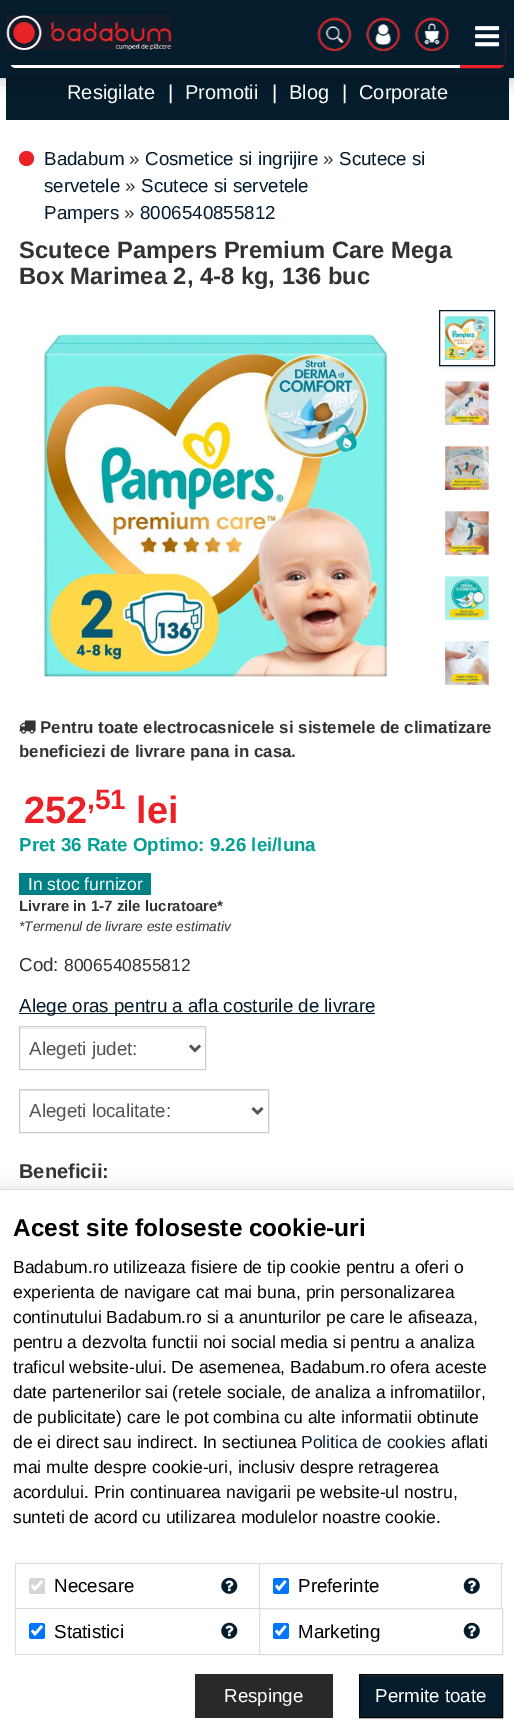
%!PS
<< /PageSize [514 1731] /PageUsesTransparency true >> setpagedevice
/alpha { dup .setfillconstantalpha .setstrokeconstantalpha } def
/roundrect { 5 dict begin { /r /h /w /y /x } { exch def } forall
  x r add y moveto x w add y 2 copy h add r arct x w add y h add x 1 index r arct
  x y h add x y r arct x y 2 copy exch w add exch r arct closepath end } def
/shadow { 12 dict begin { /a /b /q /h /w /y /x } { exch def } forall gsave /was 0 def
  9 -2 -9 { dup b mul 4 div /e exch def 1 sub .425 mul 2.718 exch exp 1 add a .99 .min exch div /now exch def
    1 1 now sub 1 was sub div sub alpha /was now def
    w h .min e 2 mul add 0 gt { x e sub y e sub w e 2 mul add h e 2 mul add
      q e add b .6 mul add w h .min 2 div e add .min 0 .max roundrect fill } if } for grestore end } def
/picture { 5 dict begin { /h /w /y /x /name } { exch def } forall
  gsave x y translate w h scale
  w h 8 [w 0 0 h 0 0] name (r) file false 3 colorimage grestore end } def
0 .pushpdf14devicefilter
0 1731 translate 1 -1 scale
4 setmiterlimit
1 setgray
0 0 514 1731 rectfill
0.016 0.11 0.173 setrgbcolor
6 78 503 42 rectfill
0 setgray
0 0 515 71 0 12.5 0.5 shadow
0.016 0.11 0.173 setrgbcolor
0 0 514 78 rectfill
1 setgray
newpath 16 24 moveto 460 24 lineto 460 68 lineto 16 68 lineto 12.5 68 10 65.5 10 62 curveto 10 30 lineto 10 26.5 12.5 24 16 24 curveto closepath fill
0.918 0.129 0.153 setrgbcolor
newpath 460.5 24.5 moveto 499 24.5 lineto 502 24.5 504.5 27 504.5 30 curveto 504.5 62 lineto 504.5 65 502 67.5 499 67.5 curveto 460.5 67.5 lineto closepath gsave fill grestore
stroke
0.016 0.11 0.173 setrgbcolor
10 24 495 41 rectfill
(img1.rgb) 6 15 166 35 picture
(img2.rgb) 317 17 35 34 picture
(img3.rgb) 366 17 35 34 picture
(img4.rgb) 415 17 35 34 picture
(img5.rgb) 475 26 25 21 picture
/LiberationSans-Regular [20 0 0 -20 0 0] selectfont
1 setgray
67 99 moveto (Resigilate) show
168 99 moveto (|) show
185 99 moveto (Promotii) show
272 99 moveto (|) show
289 99 moveto (Blog) show
342 99 moveto (|) show
359 99 moveto (Corporate) show
0.918 0.129 0.153 setrgbcolor
newpath 26.5 158.5 7.5 0 360 arc closepath fill
/LiberationSans-Regular [18.75 0 0 -18.75 0 0] selectfont
0.016 0.11 0.173 setrgbcolor
44 165 moveto (Badabum) show
0.2 setgray
129 165 moveto (») show
0.016 0.11 0.173 setrgbcolor
145 165 moveto (Cosmetice si ingrijire) show
0.2 setgray
323 165 moveto (») show
0.016 0.11 0.173 setrgbcolor
339 165 moveto (Scutece si) show
44 192 moveto (servetele) show
0.2 setgray
125 192 moveto (») show
0.016 0.11 0.173 setrgbcolor
141 192 moveto (Scutece si servetele) show
44 219 moveto (Pampers) show
0.2 setgray
124 219 moveto (») show
0.016 0.11 0.173 setrgbcolor
140 219 moveto (8006540855812) show
/LiberationSans-Bold [23.75 0 0 -23.75 0 0] selectfont
0.2 setgray
19 258 moveto (Scutece Pampers Premium Care Mega) show
19 284 moveto (Box Marimea 2, 4-8 kg, 136 buc) show
(img6.rgb) 43 334 345 344 picture
gsave
newpath 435 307 moveto 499 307 lineto 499 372 lineto 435 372 lineto closepath 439 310 moveto 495 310 lineto 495 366 lineto 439 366 lineto closepath eoclip newpath
0 setgray
439 311 56 57 0 1 0.07 shadow
grestore
0.016 0.11 0.173 setrgbcolor
439.5 310.5 55 55 rectstroke
(img7.rgb) 445 316 44 44 picture
(img8.rgb) 445 381 44 44 picture
(img9.rgb) 445 446 44 44 picture
(img10.rgb) 445 511 44 44 picture
(img11.rgb) 445 576 44 44 picture
(img12.rgb) 445 641 44 44 picture
(img13.rgb) 19 720 17 14 picture
/LiberationSans-Bold [16.9 0 0 -16.9 0 0] selectfont
0.2 setgray
40 733 moveto (Pentru toate electrocasnicele si sistemele de climatizare) show
19 757 moveto (beneficiezi de livrare pana in casa.) show
/LiberationSans-Bold [38 0 0 -38 0 0] selectfont
0.918 0.129 0.153 setrgbcolor
24 823 moveto (252) show
/LiberationSans-Bold [28 0 0 -28 0 0] selectfont
87 809 moveto (,51) show
/LiberationSans-Bold [38 0 0 -38 0 0] selectfont
136 823 moveto (lei) show
/LiberationSans-Bold [18.75 0 0 -18.75 0 0] selectfont
0.008 0.627 0.588 setrgbcolor
19 851 moveto (Pret 36 Rate Optimo: 9.26 lei/luna) show
0 0.502 0.518 setrgbcolor
19 873 132 22 rectfill
/LiberationSans-Regular [17.5 0 0 -17.5 0 0] selectfont
1 setgray
28 890 moveto (In stoc furnizor) show
/LiberationSans-Bold [15 0 0 -15 0 0] selectfont
0.2 setgray
19 911 moveto (Livrare in 1-7 zile lucratoare*) show
/LiberationSans-Italic [13.75 0 0 -13.75 0 0] selectfont
19 931 moveto (*Termenul de livrare este estimativ) show
/LiberationSans-Regular [18.75 0 0 -18.75 0 0] selectfont
19 971 moveto (Cod:) show
/LiberationSans-Regular [17.5 0 0 -17.5 0 0] selectfont
64 971 moveto (8006540855812) show
0.016 0.11 0.173 setrgbcolor
19 1013 356 1 rectfill
/LiberationSans-Regular [18.75 0 0 -18.75 0 0] selectfont
19 1012 moveto (Alege oras pentru a afla costurile de livrare) show
0.925 setgray
20 1028 185 1 rectfill
0.8 setgray
19.5 1026.5 186 43 rectstroke
0.333 setgray
2.5 setlinewidth
newpath 190 1045.5 moveto 195 1050.5 lineto 200 1045.5 lineto stroke
29 1055 moveto (Alegeti judet:) show
0.925 setgray
20 1090 248 1 rectfill
0.8 setgray
1 setlinewidth
19.5 1089.5 249 43 rectstroke
0.333 setgray
2.5 setlinewidth
newpath 252.5 1108 moveto 257.5 1113 lineto 262.5 1108 lineto stroke
29 1117 moveto (Alegeti localitate:) show
/LiberationSans-Bold [20 0 0 -20 0 0] selectfont
0.2 setgray
19 1178 moveto (Beneficii:) show
0 setgray
0 1188 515 542 0 9.5 0.1 shadow
1 setgray
0 1190 514 541 rectfill
0.867 setgray
0 1189 514 1 rectfill
/LiberationSans-Bold [24.4 0 0 -24.4 0 0] selectfont
0 setgray
13 1236 moveto (Acest site foloseste cookie-uri) show
/LiberationSans-Regular [17.5 0 0 -17.5 0 0] selectfont
13 1273 moveto (Badabum.ro utilizeaza fisiere de tip cookie pentru a oferi o) show
13 1298 moveto (experienta de navigare cat mai buna, prin personalizarea) show
13 1323 moveto (continutului Badabum.ro si a anunturilor pe care le afiseaza,) show
13 1348 moveto (pentru a dezvolta functii noi social media si pentru a analiza) show
13 1373 moveto (traficul website-ului. De asemenea, Badabum.ro ofera aceste) show
13 1398 moveto (date partenerilor sai \(retele sociale, de analiza a infromatiilor,) show
13 1423 moveto (de publicitate\) care le pot combina cu alte informatii obtinute) show
13 1448 moveto (de ei direct sau indirect. In sectiunea) show
0.016 0.11 0.173 setrgbcolor
301 1448 moveto (Politica de cookies) show
0 setgray
451 1448 moveto (aflati) show
13 1473 moveto (mai multe despre cookie-uri, inclusiv despre retragerea) show
13 1498 moveto (acordului. Prin continuarea navigarii pe website-ul nostru,) show
13 1523 moveto (sunteti de acord cu utilizarea modulelor noastre cookie.) show
0.867 setgray
15 1563 488 1 rectfill
15 1563 1 45 rectfill
0.839 setgray
29 1578 16 16 2.5 roundrect fill
1 setgray
2.6 setlinewidth
newpath 32 1585.5 moveto 35 1589 lineto 42 1581 lineto stroke
/LiberationSans-Regular [18.75 0 0 -18.75 0 0] selectfont
0 setgray
54 1592 moveto (Necesare) show
(img14.rgb) 221 1577 17 17 picture
0.867 setgray
501 1563 1 45 rectfill
259 1563 1 45 rectfill
0 0.459 1 setrgbcolor
273 1578 16 16 2.5 roundrect fill
1 setgray
newpath 276 1585.5 moveto 279 1589 lineto 285.5 1581 lineto stroke
0 setgray
298 1592 moveto (Preferinte) show
(img15.rgb) 463 1577 17 17 picture
0.867 setgray
15 1608 244 1 rectfill
15 1654 244 1 rectfill
15 1608 1 47 rectfill
0 0.459 1 setrgbcolor
29 1623 16 16 2.5 roundrect fill
1 setgray
newpath 32 1630.5 moveto 35 1634 lineto 42 1626 lineto stroke
0 setgray
54 1638 moveto (Statistici) show
(img14.rgb) 221 1622 17 17 picture
0.867 setgray
1 setlinewidth
259.5 1608.5 243 46 rectstroke
0 0.459 1 setrgbcolor
273 1623 16 16 2.5 roundrect fill
1 setgray
2.6 setlinewidth
newpath 276 1630.5 moveto 279 1634 lineto 285.5 1626 lineto stroke
0 setgray
298 1638 moveto (Marketing) show
(img15.rgb) 463 1622 17 17 picture
0.161 setgray
195 1674 138 44 rectfill
1 setgray
224 1702 moveto (Respinge) show
0 setgray
359 1675 144 44 0 0.5 0.07 shadow
0.016 0.11 0.173 setrgbcolor
360 1675 142 42 rectfill
0.165 0.243 0.298 setrgbcolor
360 1675 141 1 rectfill
0 setgray
1 setlinewidth
359.5 1674.5 143 43 rectstroke
1 setgray
375 1702 moveto (Permite toate) show
.poppdf14devicefilter showpage
